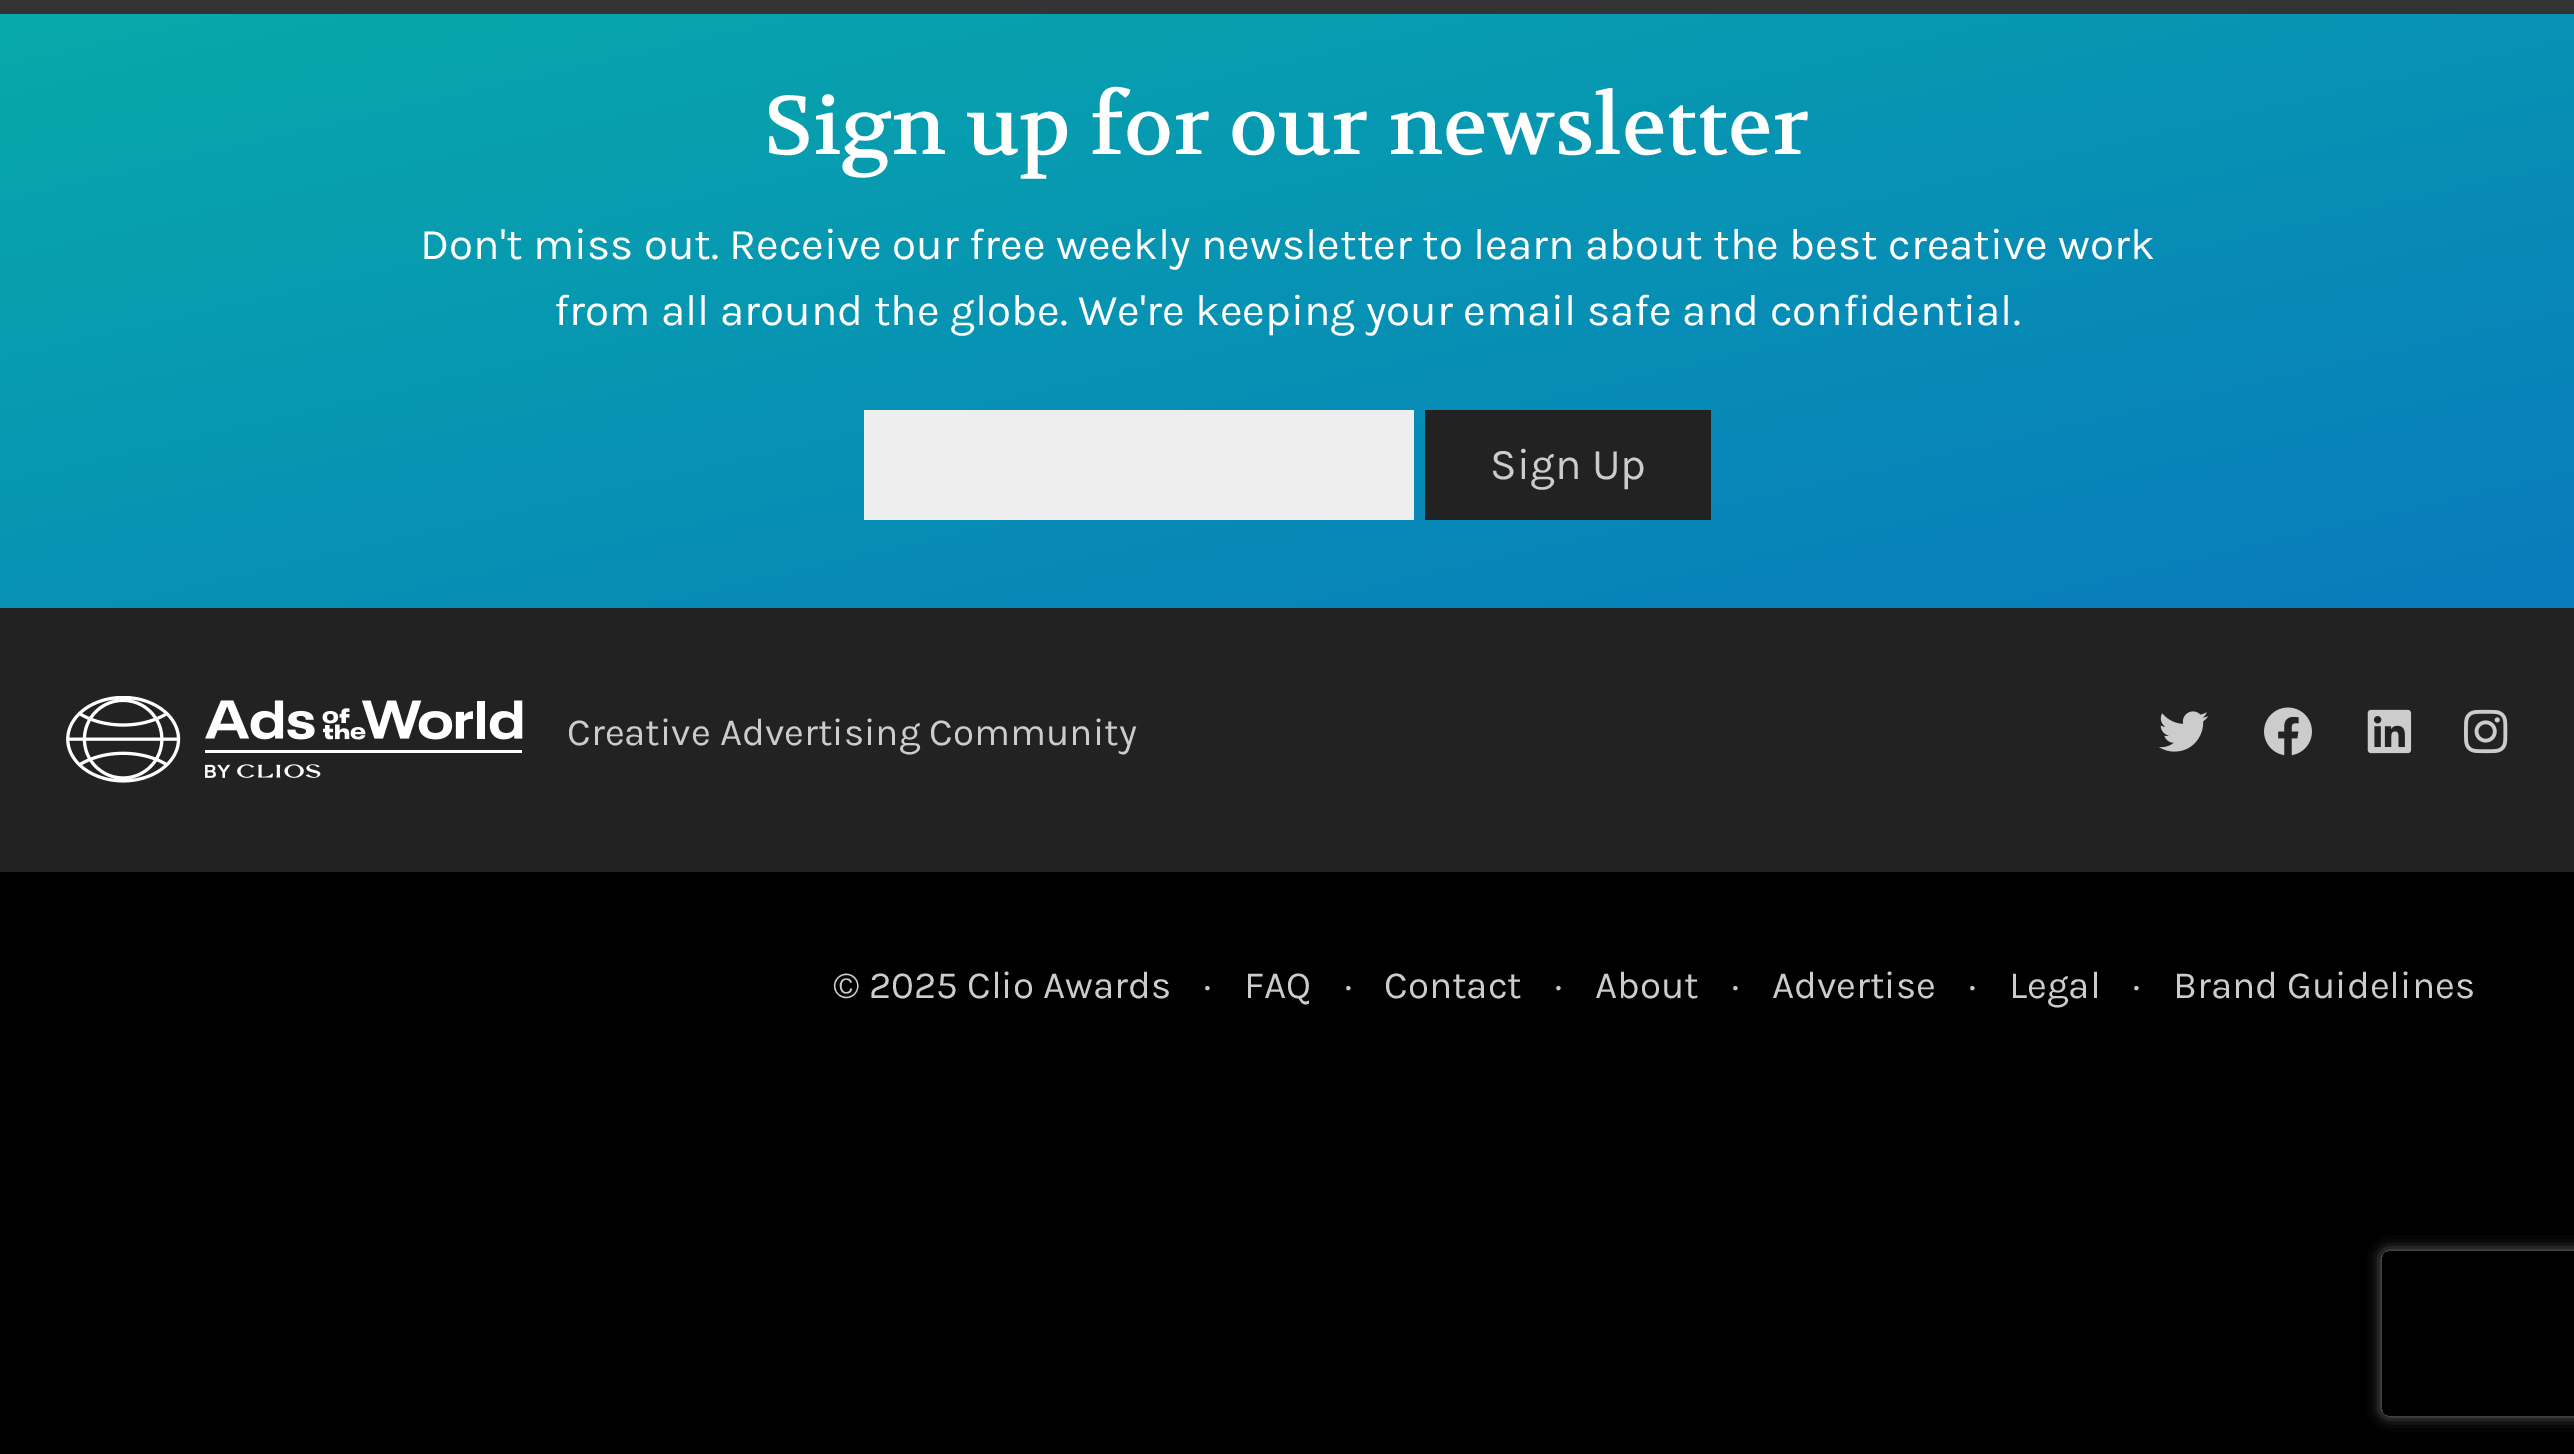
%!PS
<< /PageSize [2574 1454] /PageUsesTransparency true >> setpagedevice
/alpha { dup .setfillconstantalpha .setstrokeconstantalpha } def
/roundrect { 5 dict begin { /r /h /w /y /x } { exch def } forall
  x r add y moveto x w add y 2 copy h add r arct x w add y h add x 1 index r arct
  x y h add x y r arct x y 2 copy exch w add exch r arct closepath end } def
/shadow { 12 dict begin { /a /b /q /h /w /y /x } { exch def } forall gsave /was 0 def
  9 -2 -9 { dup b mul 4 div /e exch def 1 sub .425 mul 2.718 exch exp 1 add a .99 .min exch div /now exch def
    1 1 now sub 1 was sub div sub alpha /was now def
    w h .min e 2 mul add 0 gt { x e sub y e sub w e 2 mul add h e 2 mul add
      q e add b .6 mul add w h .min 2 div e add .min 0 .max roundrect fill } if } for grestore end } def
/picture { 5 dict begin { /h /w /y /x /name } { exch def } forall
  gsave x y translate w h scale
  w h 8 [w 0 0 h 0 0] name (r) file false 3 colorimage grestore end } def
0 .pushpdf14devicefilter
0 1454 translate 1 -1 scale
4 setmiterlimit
0.2 setgray
0 0 2574 1454 rectfill
gsave newpath 0 14 moveto 2574 14 lineto 2574 608 lineto 0 608 lineto closepath clip newpath
<< /ShadingType 2 /ColorSpace /DeviceRGB /Coords [1157 -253 1417 875] /Extend [true true] /Function << /FunctionType 2 /Domain [0 1] /C0 [0.027 0.663 0.667] /C1 [0.031 0.482 0.741] /N 1 >> >> shfill grestore
/Volkhov-Regular [82.5 0 0 -82.5 0 0] selectfont
1 setgray
764 154 moveto (Sign up for our newsletter) show
/Karla-Regular [44 0 0 -44 0 0] selectfont
420 259 moveto (Don't miss out. Receive our free weekly newsletter to learn about the best creative work) show
554 325 moveto (from all around the globe. We're keeping your email safe and confidential.) show
0.933 setgray
864 410 550 110 rectfill
0.133 setgray
1425 410 286 110 rectfill
0.8 setgray
1490 479 moveto (Sign Up) show
0 setgray
0 872 2574 582 rectfill
gsave
newpath 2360 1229 moveto 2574 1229 lineto 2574 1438 lineto 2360 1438 lineto closepath 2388 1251 moveto 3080 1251 lineto 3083.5 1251 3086 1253.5 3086 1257 curveto 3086 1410 lineto 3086 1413.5 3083.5 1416 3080 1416 curveto 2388 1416 lineto 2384.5 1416 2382 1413.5 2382 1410 curveto 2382 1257 lineto 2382 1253.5 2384.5 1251 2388 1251 curveto closepath eoclip newpath
0.502 setgray
2382 1251 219 165 6 7 1 shadow
grestore
0.133 setgray
0 608 2574 264 rectfill
(img1.rgb) 66 696 457 87 picture
/Karla-Regular [38.5 0 0 -38.5 0 0] selectfont
0.8 setgray
567 745 moveto (Creative Advertising Community) show
(img2.rgb) 2159 711 50 41 picture
(img3.rgb) 2264 707 48 49 picture
(img4.rgb) 2367 709 45 45 picture
(img5.rgb) 2464 709 44 45 picture
833 998 moveto (© 2025 Clio Awards) show
1204 998 moveto (·) show
1244 998 moveto (FAQ) show
1345 998 moveto (·) show
1384 998 moveto (Contact) show
1555 998 moveto (·) show
1595 998 moveto (About) show
1732 998 moveto (·) show
1772 998 moveto (Advertise) show
1969 998 moveto (·) show
2009 998 moveto (Legal) show
2133 998 moveto (·) show
2173 998 moveto (Brand Guidelines) show
.poppdf14devicefilter showpage
